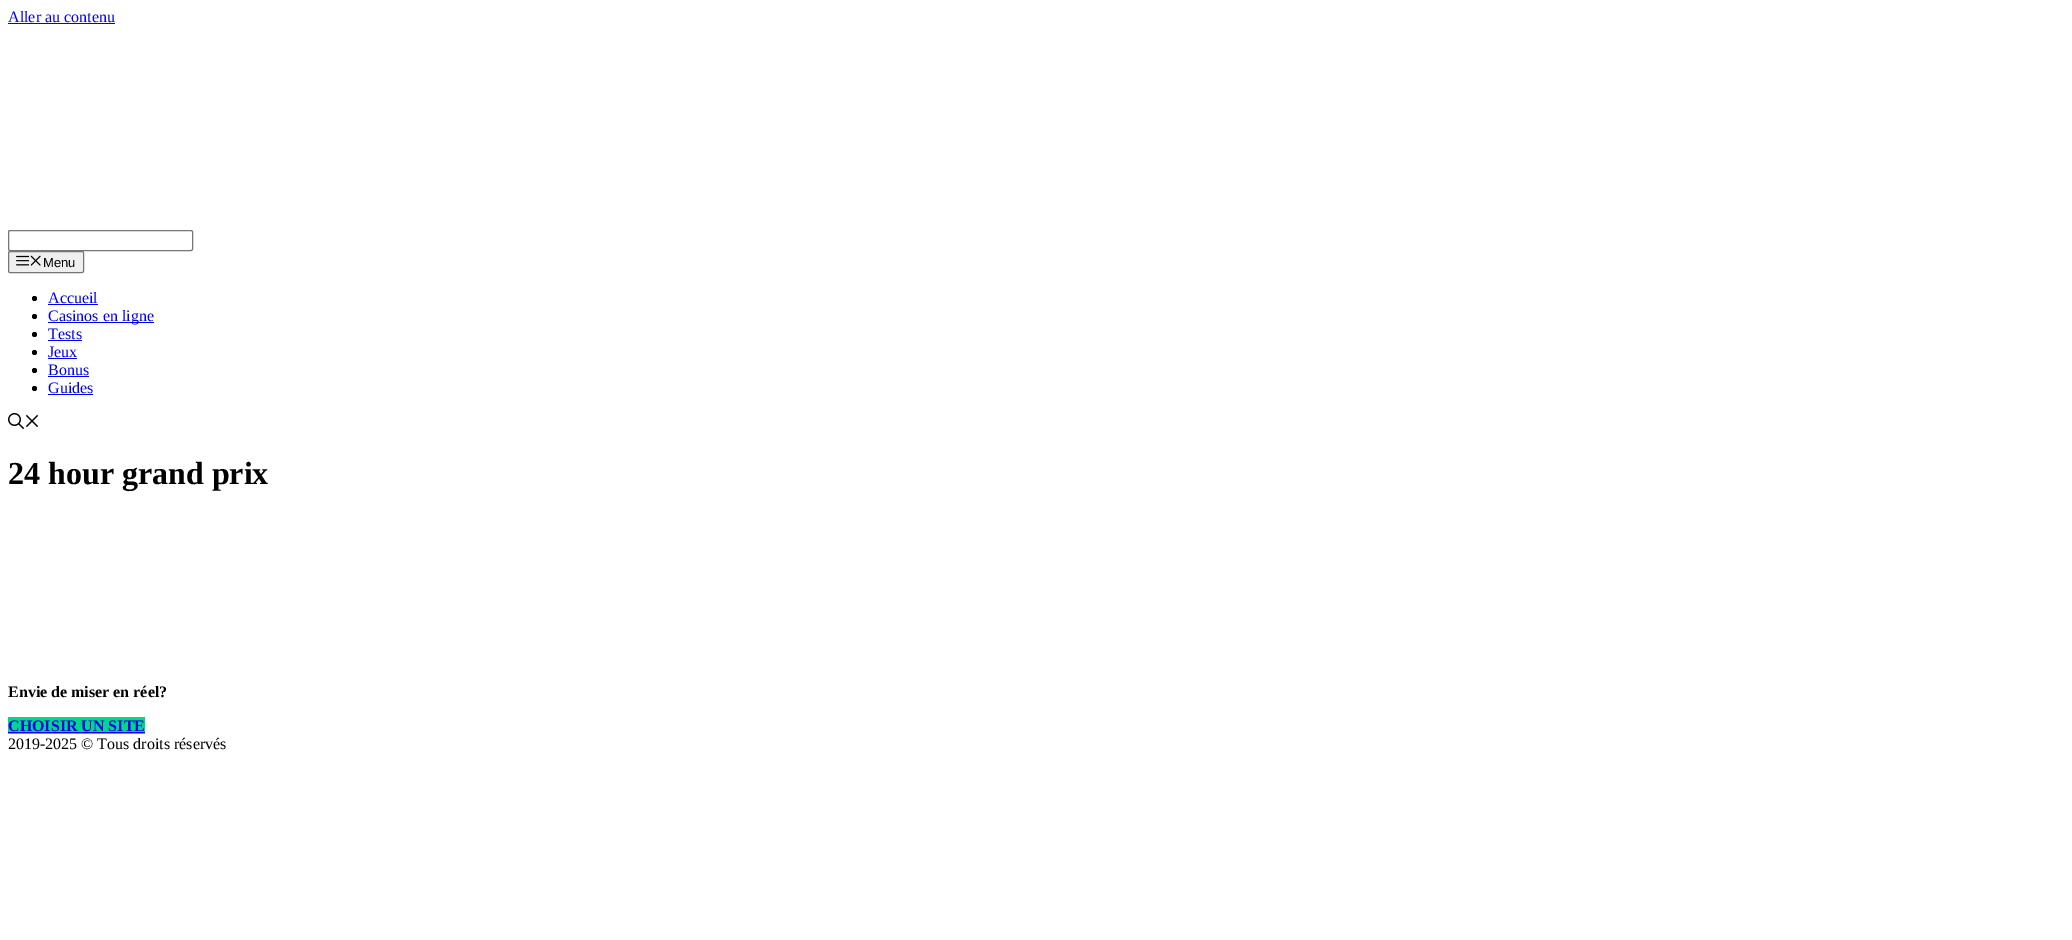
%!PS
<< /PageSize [2072 940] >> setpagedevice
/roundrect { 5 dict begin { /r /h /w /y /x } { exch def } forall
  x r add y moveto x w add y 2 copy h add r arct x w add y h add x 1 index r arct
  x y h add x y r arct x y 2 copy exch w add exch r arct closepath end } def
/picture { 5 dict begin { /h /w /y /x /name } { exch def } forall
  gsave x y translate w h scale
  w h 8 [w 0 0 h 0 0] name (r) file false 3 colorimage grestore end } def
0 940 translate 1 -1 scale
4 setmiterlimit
1 setgray
0 0 2072 940 rectfill
/LiberationSerif-Regular [16 0 0 -16 0 0] selectfont
0 0 0.933 setrgbcolor
8 22 moveto (Aller au contenu) show
8 23 107 1 rectfill
0.463 setgray
8.5 230.5 184 20 1.5 roundrect stroke
0.937 setgray
8.5 251.5 75 21 1.5 roundrect gsave fill grestore
0.463 setgray
stroke
(img1.rgb) 16 255 13 11 picture
(img2.rgb) 30 255 11 11 picture
/LiberationSans-Regular [13 0 0 -13 0 0] selectfont
0 setgray
43 267 moveto (Menu) show
newpath 34.5 298.5 2.5 0 360 arc closepath fill
/LiberationSerif-Regular [16 0 0 -16 0 0] selectfont
0 0 0.933 setrgbcolor
48 303 moveto (Accueil) show
48 304 50 1 rectfill
0 setgray
newpath 34.5 316.5 2.5 0 360 arc closepath fill
0 0 0.933 setrgbcolor
48 322 106 1 rectfill
48 321 moveto (Casinos en ligne) show
0 setgray
newpath 34.5 334.5 2.5 0 360 arc closepath fill
0 0 0.933 setrgbcolor
48 339 moveto (Tests) show
48 340 34 1 rectfill
0 setgray
newpath 34.5 352.5 2.5 0 360 arc closepath fill
0 0 0.933 setrgbcolor
48 357 moveto (Jeux) show
48 358 29 1 rectfill
0 setgray
newpath 34.5 370.5 2.5 0 360 arc closepath fill
0 0 0.933 setrgbcolor
48 375 moveto (Bonus) show
48 376 41 1 rectfill
0 setgray
newpath 34.5 388.5 2.5 0 360 arc closepath fill
0 0 0.933 setrgbcolor
48 393 moveto (Guides) show
48 394 45 1 rectfill
(img3.rgb) 8 413 16 16 picture
(img4.rgb) 26 415 12 12 picture
/LiberationSerif-Bold [32 0 0 -32 0 0] selectfont
0 setgray
8 484 moveto (24 hour grand prix) show
/LiberationSerif-Bold [16 0 0 -16 0 0] selectfont
8 697 moveto (Envie de miser en réel?) show
0 0.843 0.533 setrgbcolor
8 717 137 17 rectfill
0 0 0.933 setrgbcolor
8 731 moveto (CHOISIR UN SITE) show
8 732 137 1 rectfill
/LiberationSerif-Regular [16 0 0 -16 0 0] selectfont
0 setgray
8 749 moveto (2019-2025 © Tous droits réservés) show
showpage
